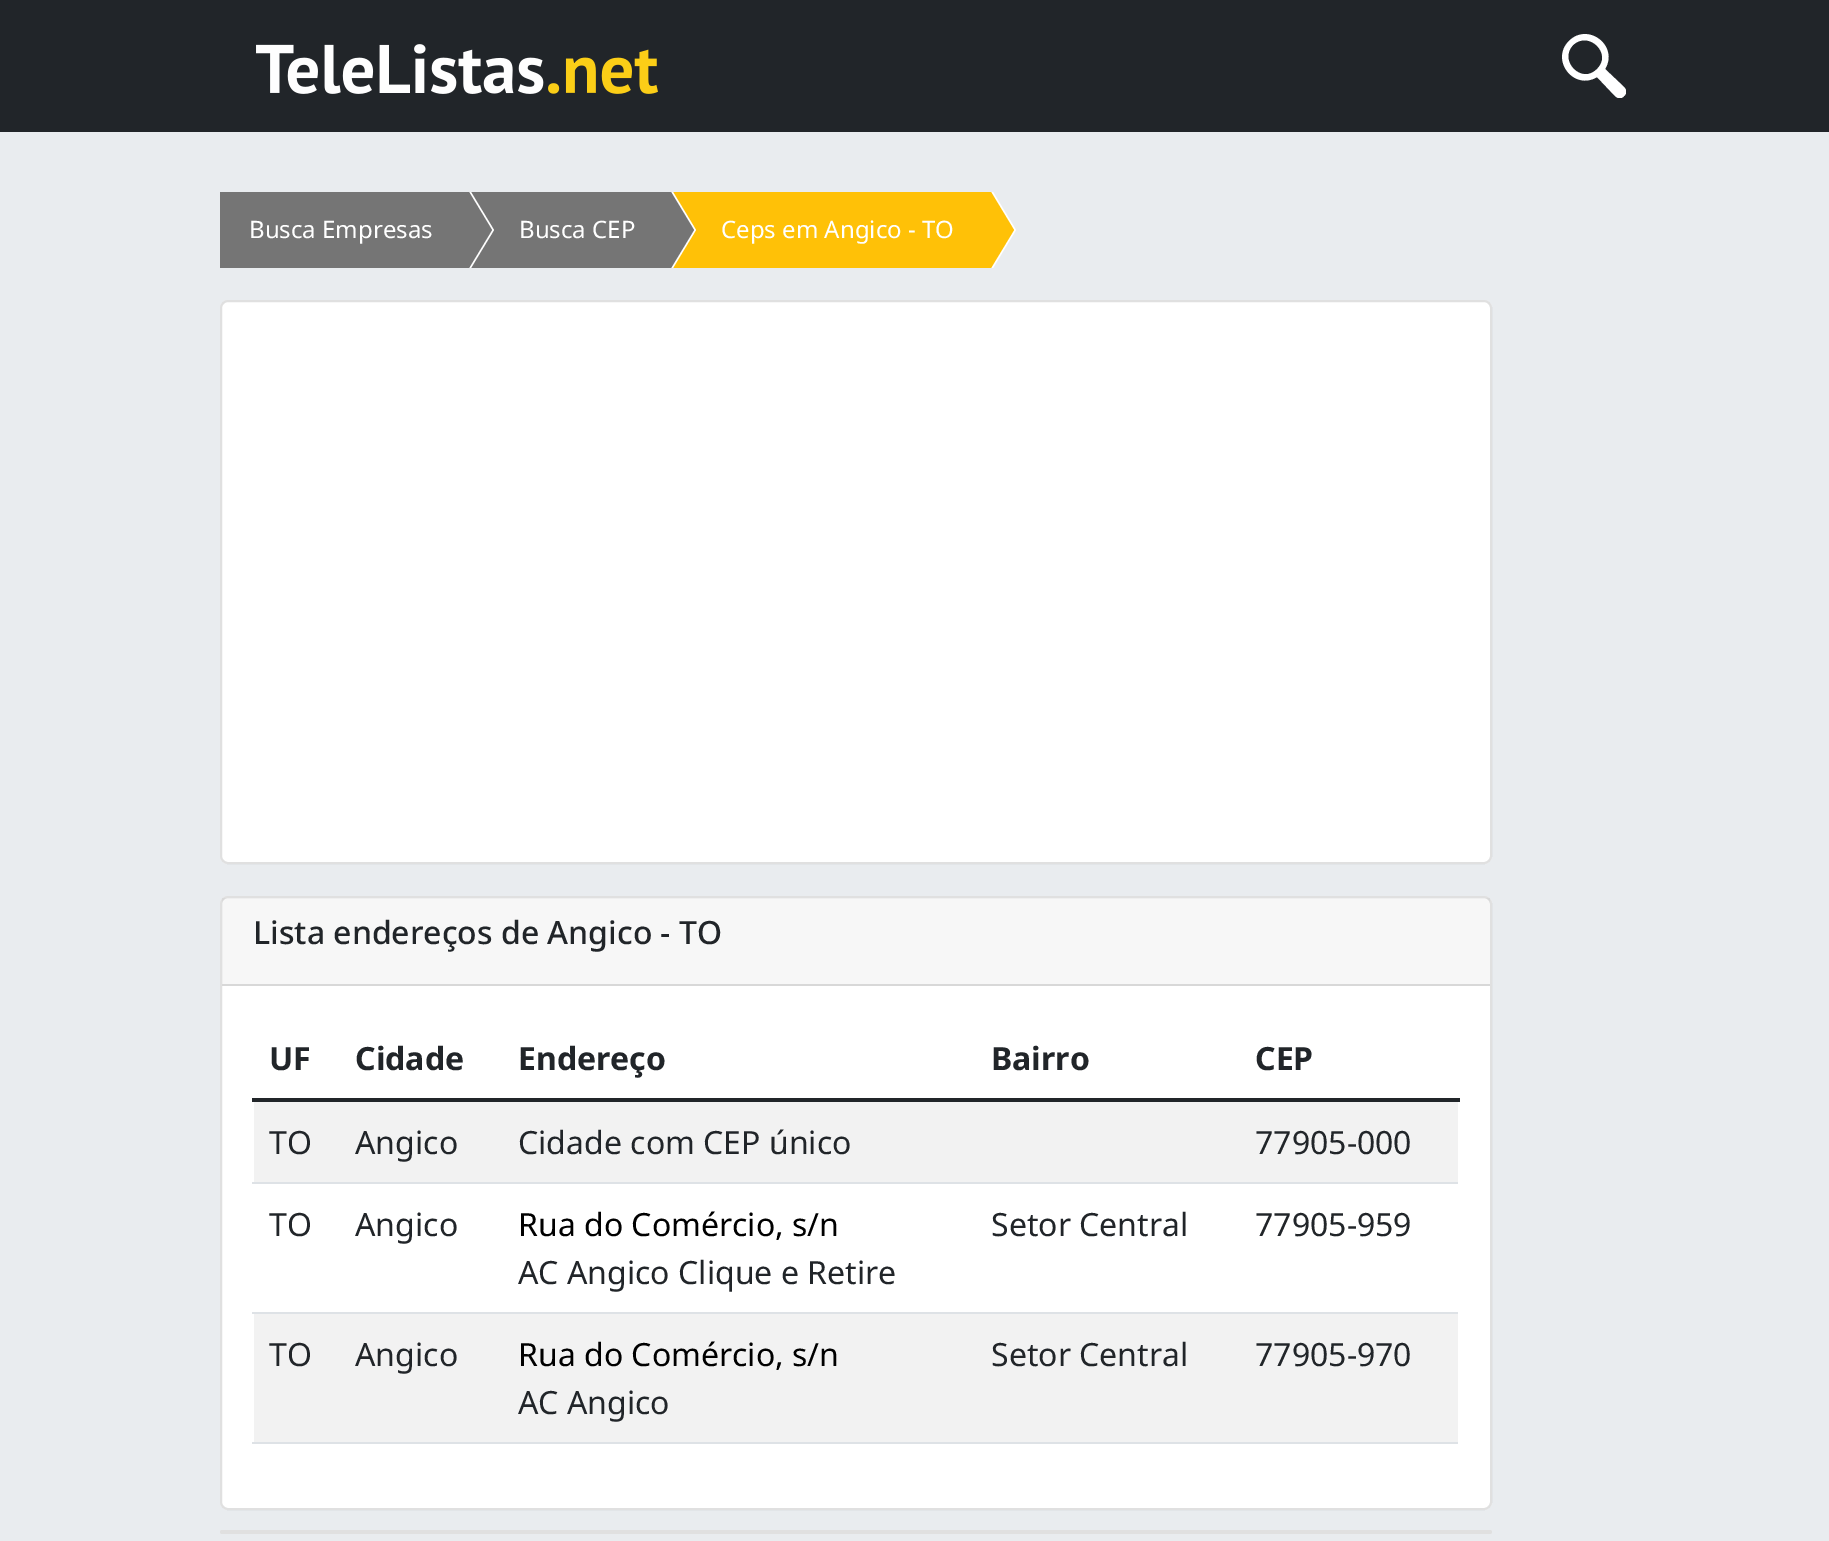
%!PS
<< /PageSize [1829 1541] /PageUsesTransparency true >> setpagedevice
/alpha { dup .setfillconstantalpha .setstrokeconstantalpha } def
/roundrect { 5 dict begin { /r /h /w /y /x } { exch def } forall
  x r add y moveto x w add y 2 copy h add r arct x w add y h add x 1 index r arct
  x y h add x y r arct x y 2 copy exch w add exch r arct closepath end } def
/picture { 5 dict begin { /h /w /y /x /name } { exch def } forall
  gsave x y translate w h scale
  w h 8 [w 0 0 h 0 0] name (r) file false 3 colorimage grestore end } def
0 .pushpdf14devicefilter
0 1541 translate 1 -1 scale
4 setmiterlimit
0.914 0.925 0.937 setrgbcolor
0 0 1829 1541 rectfill
0.129 0.145 0.161 setrgbcolor
0 0 1829 132 rectfill
(img1.rgb) 256 44 402 50 picture
gsave
1562 34 64 64 rectclip
1 setgray
newpath 1624 87 moveto 1605 69 lineto 1619 46 1588 22 1569 41 curveto 1550 60 1574 91 1597 77 curveto 1615 96 lineto 1618 99 1622 99 1624 96 curveto 1627 94 1627 90 1624 87 curveto closepath 1597 69 moveto 1582 85 1558 61 1573 45 curveto 1589 30 1613 54 1597 69 curveto closepath fill
grestore
0.459 setgray
220 192 212 76 rectfill
471 192 163 76 rectfill
1 setgray
newpath 471 192 moveto 494 230 lineto 471 268 lineto 434 268 lineto 434 192 lineto closepath fill
0.459 setgray
newpath 469 192 moveto 492 230 lineto 469 268 lineto 432 268 lineto 432 192 lineto closepath fill
/NotoSans-Regular [24 0 0 -24 0 0] selectfont
1 setgray
249 238 moveto (Busca Empresas) show
1 0.757 0.027 setrgbcolor
673 192 281 76 rectfill
1 setgray
newpath 673 192 moveto 696 230 lineto 673 268 lineto 636 268 lineto 636 192 lineto closepath fill
0.459 setgray
newpath 671 192 moveto 694 230 lineto 671 268 lineto 634 268 lineto 634 192 lineto closepath fill
1 setgray
519 238 moveto (Busca CEP) show
newpath 993 192 moveto 1016 230 lineto 993 268 lineto 956 268 lineto 956 192 lineto closepath fill
1 0.757 0.027 setrgbcolor
newpath 991 192 moveto 1014 230 lineto 991 268 lineto 954 268 lineto 954 192 lineto closepath fill
1 setgray
721 238 moveto (Ceps em Angico - TO) show
220 300 1272 564 8 roundrect fill
0.12 alpha
0 setgray
2 setlinewidth
221 301 1270 562 7 roundrect stroke
1 alpha
1 setgray
220 896 1272 614 8 roundrect fill
0.12 alpha
0 setgray
221 897 1270 612 7 roundrect stroke
0.03 alpha
222 898 1268 86 rectfill
1 alpha
0.847 setgray
222 984 1268 2 rectfill
/NotoSans-Medium [32 0 0 -32 0 0] selectfont
0.129 0.145 0.161 setrgbcolor
253 944 moveto (Lista endereços de Angico - TO) show
/NotoSans-Bold [32 0 0 -32 0 0] selectfont
269 1070 moveto (UF) show
355 1070 moveto (Cidade) show
518 1070 moveto (Endereço) show
991 1070 moveto (Bairro) show
1255 1070 moveto (CEP) show
252 1098 1208 4 rectfill
0.949 setgray
254 1102 1204 80 rectfill
/NotoSans-Regular [32 0 0 -32 0 0] selectfont
0.129 0.145 0.161 setrgbcolor
269 1154 moveto (TO) show
355 1154 moveto (Angico) show
518 1154 moveto (Cidade com CEP único) show
0.871 0.886 0.902 setrgbcolor
252 1182 1206 2 rectfill
0.129 0.145 0.161 setrgbcolor
1255 1154 moveto (77905-000) show
269 1236 moveto (TO) show
355 1236 moveto (Angico) show
0 setgray
518 1236 moveto (Rua do Comércio, s/n) show
0.129 0.145 0.161 setrgbcolor
518 1284 moveto (AC Angico Clique e Retire) show
991 1236 moveto (Setor Central) show
0.871 0.886 0.902 setrgbcolor
252 1312 1206 2 rectfill
0.129 0.145 0.161 setrgbcolor
1255 1236 moveto (77905-959) show
0.949 setgray
254 1314 1204 128 rectfill
0.129 0.145 0.161 setrgbcolor
269 1366 moveto (TO) show
355 1366 moveto (Angico) show
0 setgray
518 1366 moveto (Rua do Comércio, s/n) show
0.129 0.145 0.161 setrgbcolor
518 1414 moveto (AC Angico) show
991 1366 moveto (Setor Central) show
0.871 0.886 0.902 setrgbcolor
252 1442 1206 2 rectfill
0.129 0.145 0.161 setrgbcolor
1255 1366 moveto (77905-970) show
1 setgray
220 1530 1272 4 2 roundrect fill
0.12 alpha
0 setgray
220 1530 1272 4 2 roundrect fill
.poppdf14devicefilter showpage
